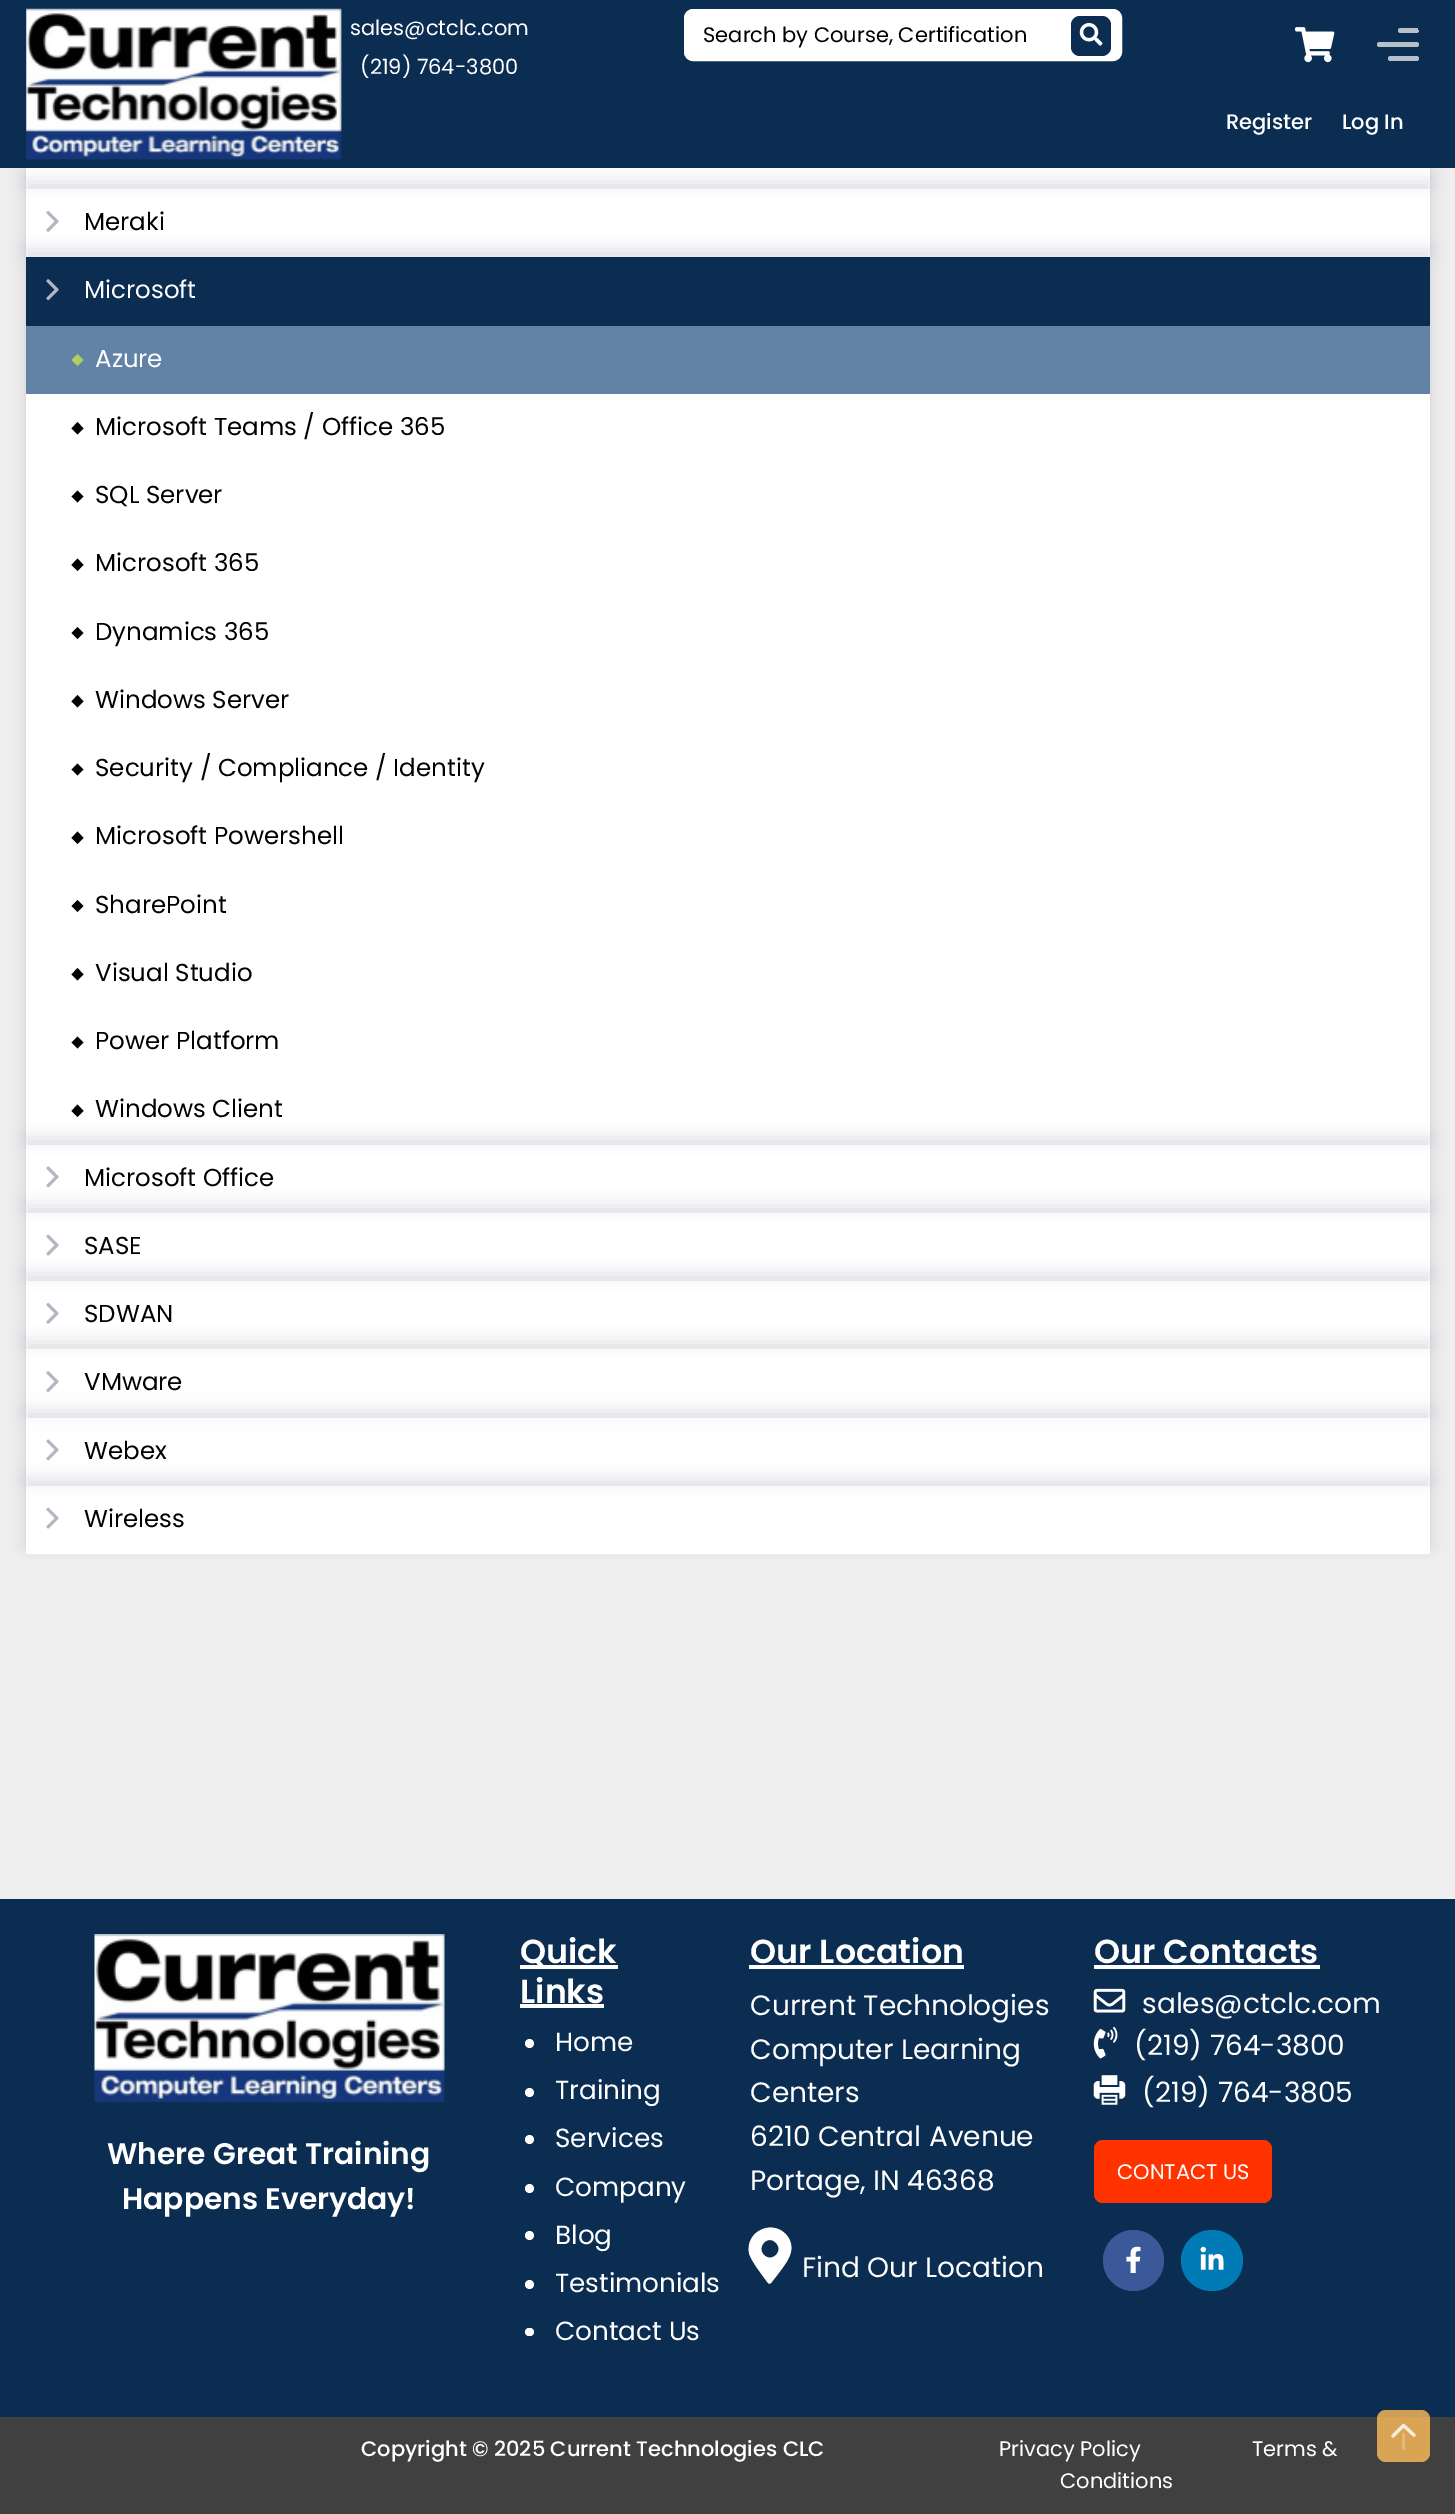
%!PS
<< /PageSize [1455 2514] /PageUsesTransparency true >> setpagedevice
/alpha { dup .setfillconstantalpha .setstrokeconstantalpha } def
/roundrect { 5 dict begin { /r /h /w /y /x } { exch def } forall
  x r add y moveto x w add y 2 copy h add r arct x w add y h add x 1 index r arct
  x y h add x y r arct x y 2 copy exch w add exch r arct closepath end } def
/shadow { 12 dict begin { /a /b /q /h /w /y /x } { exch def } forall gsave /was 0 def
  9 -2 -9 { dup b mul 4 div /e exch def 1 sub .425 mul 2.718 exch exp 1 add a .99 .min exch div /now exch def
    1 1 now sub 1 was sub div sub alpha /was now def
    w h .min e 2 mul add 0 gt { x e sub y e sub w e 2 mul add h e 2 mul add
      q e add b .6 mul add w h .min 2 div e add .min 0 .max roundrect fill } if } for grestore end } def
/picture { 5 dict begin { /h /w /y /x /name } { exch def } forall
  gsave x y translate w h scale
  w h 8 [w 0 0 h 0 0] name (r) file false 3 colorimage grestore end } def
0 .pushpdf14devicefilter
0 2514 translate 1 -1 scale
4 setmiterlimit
0.937 setgray
0 0 1455 2514 rectfill
1 setgray
26 168 1404 1386 rectfill
gsave
newpath 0 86 moveto 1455 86 lineto 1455 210 lineto 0 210 lineto closepath 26 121 moveto 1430 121 lineto 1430 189 lineto 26 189 lineto closepath eoclip newpath
0.322 0.247 0.412 setrgbcolor
26 114 1404 68 0 9 0.18 shadow
grestore
gsave
newpath 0 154 moveto 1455 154 lineto 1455 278 lineto 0 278 lineto closepath 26 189 moveto 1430 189 lineto 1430 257 lineto 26 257 lineto closepath eoclip newpath
0.322 0.247 0.412 setrgbcolor
26 182 1404 68 0 9 0.18 shadow
grestore
0.039 0.176 0.318 setrgbcolor
0 0 1455 168 rectfill
(img1.rgb) 26 8 316 152 picture
/Poppins-Regular [21 0 0 -21 0 0] selectfont
1 setgray
350 35 moveto (sales@ctclc.com) show
360 74 moveto (\(219\) 764-3800) show
685 10 436 50 8 roundrect gsave fill grestore
2 setlinewidth
stroke
0 setgray
703 42 moveto (Search by Course, Certification) show
0.039 0.176 0.318 setrgbcolor
1071 16 40 40 9 roundrect fill
(img2.rgb) 1079 23 24 23 picture
(img3.rgb) 1295 27 40 36 picture
0.714 0.753 0.796 setrgbcolor
1377 42 42 5 2.5 roundrect fill
gsave
1377 25 42 42 9 roundrect clip newpath
1398 28 21 5 2.5 roundrect fill
grestore
1388 56 31 5 2.5 roundrect fill
/Poppins-Medium [21 0 0 -21 0 0] selectfont
1 setgray
1226 129 moveto (Register) show
1342 129 moveto (Log In) show
(img4.rgb) 46 210 13 22 picture
/Poppins-Regular [24.5 0 0 -24.5 0 0] selectfont
0 setgray
84 230 moveto (Meraki) show
gsave
newpath 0 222 moveto 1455 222 lineto 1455 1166 lineto 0 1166 lineto closepath 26 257 moveto 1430 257 lineto 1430 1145 lineto 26 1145 lineto closepath eoclip newpath
0.322 0.247 0.412 setrgbcolor
26 250 1404 888 0 9 0.18 shadow
grestore
0.039 0.176 0.318 setrgbcolor
26 257 1404 69 rectfill
(img5.rgb) 46 279 13 22 picture
1 setgray
84 298 moveto (Microsoft) show
0.384 0.514 0.647 setrgbcolor
26 326 1404 68 rectfill
0.682 0.808 0.38 setrgbcolor
newpath 77.5 354 moveto 83.5 360 lineto 77.5 366 lineto 71.5 360 lineto closepath fill
1 setgray
95 367 moveto (Azure) show
0 setgray
newpath 77.5 422 moveto 83.5 428.5 lineto 77.5 434.5 lineto 71.5 428.5 lineto closepath fill
95 435 moveto (Microsoft Teams / Office 365) show
newpath 77.5 490.5 moveto 83.5 496.5 lineto 77.5 502.5 lineto 71.5 496.5 lineto closepath fill
95 503 moveto (SQL Server) show
newpath 77.5 558.5 moveto 83.5 565 lineto 77.5 571 lineto 71.5 565 lineto closepath fill
95 571 moveto (Microsoft 365) show
newpath 77.5 627 moveto 83.5 633 lineto 77.5 639 lineto 71.5 633 lineto closepath fill
95 640 moveto (Dynamics 365) show
newpath 77.5 695 moveto 83.5 701.5 lineto 77.5 707.5 lineto 71.5 701.5 lineto closepath fill
95 708 moveto (Windows Server) show
newpath 77.5 763.5 moveto 83.5 769.5 lineto 77.5 775.5 lineto 71.5 769.5 lineto closepath fill
95 776 moveto (Security / Compliance / Identity) show
newpath 77.5 831.5 moveto 83.5 838 lineto 77.5 844 lineto 71.5 838 lineto closepath fill
95 844 moveto (Microsoft Powershell) show
newpath 77.5 900 moveto 83.5 906 lineto 77.5 912 lineto 71.5 906 lineto closepath fill
95 913 moveto (SharePoint) show
newpath 77.5 968 moveto 83.5 974.5 lineto 77.5 980.5 lineto 71.5 974.5 lineto closepath fill
95 981 moveto (Visual Studio) show
newpath 77.5 1036.5 moveto 83.5 1042.5 lineto 77.5 1048.5 lineto 71.5 1042.5 lineto closepath fill
95 1049 moveto (Power Platform) show
gsave
newpath 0 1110 moveto 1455 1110 lineto 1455 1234 lineto 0 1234 lineto closepath 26 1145 moveto 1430 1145 lineto 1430 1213 lineto 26 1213 lineto closepath eoclip newpath
0.322 0.247 0.412 setrgbcolor
26 1138 1404 68 0 9 0.18 shadow
grestore
newpath 77.5 1104.5 moveto 83.5 1111 lineto 77.5 1117 lineto 71.5 1111 lineto closepath fill
95 1117 moveto (Windows Client) show
(img6.rgb) 46 1166 13 22 picture
84 1186 moveto (Microsoft Office) show
gsave
newpath 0 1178 moveto 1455 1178 lineto 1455 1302 lineto 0 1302 lineto closepath 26 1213 moveto 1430 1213 lineto 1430 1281 lineto 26 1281 lineto closepath eoclip newpath
0.322 0.247 0.412 setrgbcolor
26 1206 1404 68 0 9 0.18 shadow
grestore
(img7.rgb) 46 1234 13 22 picture
84 1254 moveto (SASE) show
gsave
newpath 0 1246 moveto 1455 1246 lineto 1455 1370 lineto 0 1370 lineto closepath 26 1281 moveto 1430 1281 lineto 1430 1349 lineto 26 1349 lineto closepath eoclip newpath
0.322 0.247 0.412 setrgbcolor
26 1274 1404 68 0 9 0.18 shadow
grestore
(img4.rgb) 46 1302 13 22 picture
84 1322 moveto (SDWAN) show
gsave
newpath 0 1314 moveto 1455 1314 lineto 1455 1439 lineto 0 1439 lineto closepath 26 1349 moveto 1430 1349 lineto 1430 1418 lineto 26 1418 lineto closepath eoclip newpath
0.322 0.247 0.412 setrgbcolor
26 1342 1404 69 0 9 0.18 shadow
grestore
(img8.rgb) 46 1371 13 22 picture
84 1390 moveto (VMware) show
gsave
newpath 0 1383 moveto 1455 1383 lineto 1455 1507 lineto 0 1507 lineto closepath 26 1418 moveto 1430 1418 lineto 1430 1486 lineto 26 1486 lineto closepath eoclip newpath
0.322 0.247 0.412 setrgbcolor
26 1411 1404 68 0 9 0.18 shadow
grestore
(img6.rgb) 46 1439 13 22 picture
84 1459 moveto (Webex) show
gsave
newpath 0 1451 moveto 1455 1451 lineto 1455 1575 lineto 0 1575 lineto closepath 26 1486 moveto 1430 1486 lineto 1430 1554 lineto 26 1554 lineto closepath eoclip newpath
0.322 0.247 0.412 setrgbcolor
26 1479 1404 68 0 9 0.18 shadow
grestore
(img7.rgb) 46 1507 13 22 picture
84 1527 moveto (Wireless) show
0.039 0.176 0.318 setrgbcolor
0 1899 1455 518 rectfill
(img9.rgb) 94 1934 351 168 picture
/Poppins-SemiBold [29.75 0 0 -29.75 0 0] selectfont
1 setgray
107 2164 moveto (Where Great Training) show
122 2209 moveto (Happens Everyday!) show
520 1965 98 4 rectfill
/Poppins-SemiBold [33.25 0 0 -33.25 0 0] selectfont
520 1963 moveto (Quick) show
520 2003 moveto (Links) show
520 2004 84 4 rectfill
newpath 529.5 2043.5 4.5 0 360 arc closepath fill
/Poppins-Regular [26.25 0 0 -26.25 0 0] selectfont
555 2051 moveto (Home) show
newpath 529.5 2092.5 4.5 0 360 arc closepath fill
555 2099 moveto (Training) show
newpath 529.5 2139.5 4.5 0 360 arc closepath fill
555 2147 moveto (Services) show
newpath 529.5 2188.5 4.5 0 360 arc closepath fill
555 2196 moveto (Company) show
newpath 529.5 2235.5 4.5 0 360 arc closepath fill
555 2244 moveto (Blog) show
newpath 529.5 2284.5 4.5 0 360 arc closepath fill
555 2292 moveto (Testimonials) show
525 2328 9 8 4 roundrect fill
555 2340 moveto (Contact Us) show
/Poppins-SemiBold [33.25 0 0 -33.25 0 0] selectfont
750 1963 moveto (Our Location) show
749 1965 215 4 rectfill
/Poppins-Regular [28 0 0 -28 0 0] selectfont
750 2015 moveto (Current Technologies) show
750 2059 moveto (Computer Learning) show
750 2102 moveto (Centers) show
750 2146 moveto (6210 Central Avenue) show
750 2190 moveto (Portage, IN 46368) show
newpath 768 2283 moveto 763 2276 751 2261 749 2253 curveto 745 2230 775 2218 788 2237 curveto 797 2251 786 2263 778 2274 curveto 771 2283 lineto 770 2284 769 2284 768 2283 curveto closepath 764 2255 moveto 772 2263 784 2251 776 2243 curveto 768 2234 756 2247 764 2255 curveto closepath fill
802 2277 moveto (Find Our Location) show
/Poppins-SemiBold [33.25 0 0 -33.25 0 0] selectfont
1094 1963 moveto (Our Contacts) show
1094 1965 226 4 rectfill
(img10.rgb) 1093 1988 33 25 picture
/Poppins-Regular [28 0 0 -28 0 0] selectfont
1142 2013 moveto (sales@ctclc.com) show
(img11.rgb) 1093 2026 25 33 picture
1134 2055 moveto (\(219\) 764-3800) show
(img12.rgb) 1093 2075 33 30 picture
1142 2102 moveto (\(219\) 764-3805) show
1 0.2 0 setrgbcolor
1094 2140 178 63 9 roundrect fill
/Poppins-Regular [21 0 0 -21 0 0] selectfont
1 setgray
1117 2179 moveto (CONTACT US) show
0.231 0.349 0.596 setrgbcolor
newpath 1133.5 2260.5 30.5 0 360 arc closepath fill
(img13.rgb) 1126 2246 15 27 picture
0 0.482 0.71 setrgbcolor
1181 2230 62 61 30.5 roundrect fill
(img14.rgb) 1200 2246 24 24 picture
0.251 setgray
0 2417 1455 97 rectfill
/Poppins-Medium [21 0 0 -21 0 0] selectfont
1 setgray
361 2456 moveto (Copyright © 2025 Current Technologies CLC) show
/Poppins-Regular [21 0 0 -21 0 0] selectfont
999 2456 moveto (Privacy Policy) show
1252 2456 moveto (Terms &) show
1060 2488 moveto (Conditions) show
0.8 alpha
1 0.741 0.349 setrgbcolor
1377 2410 53 52 9 roundrect fill
1 alpha
(img15.rgb) 1391 2423 25 27 picture
.poppdf14devicefilter showpage
